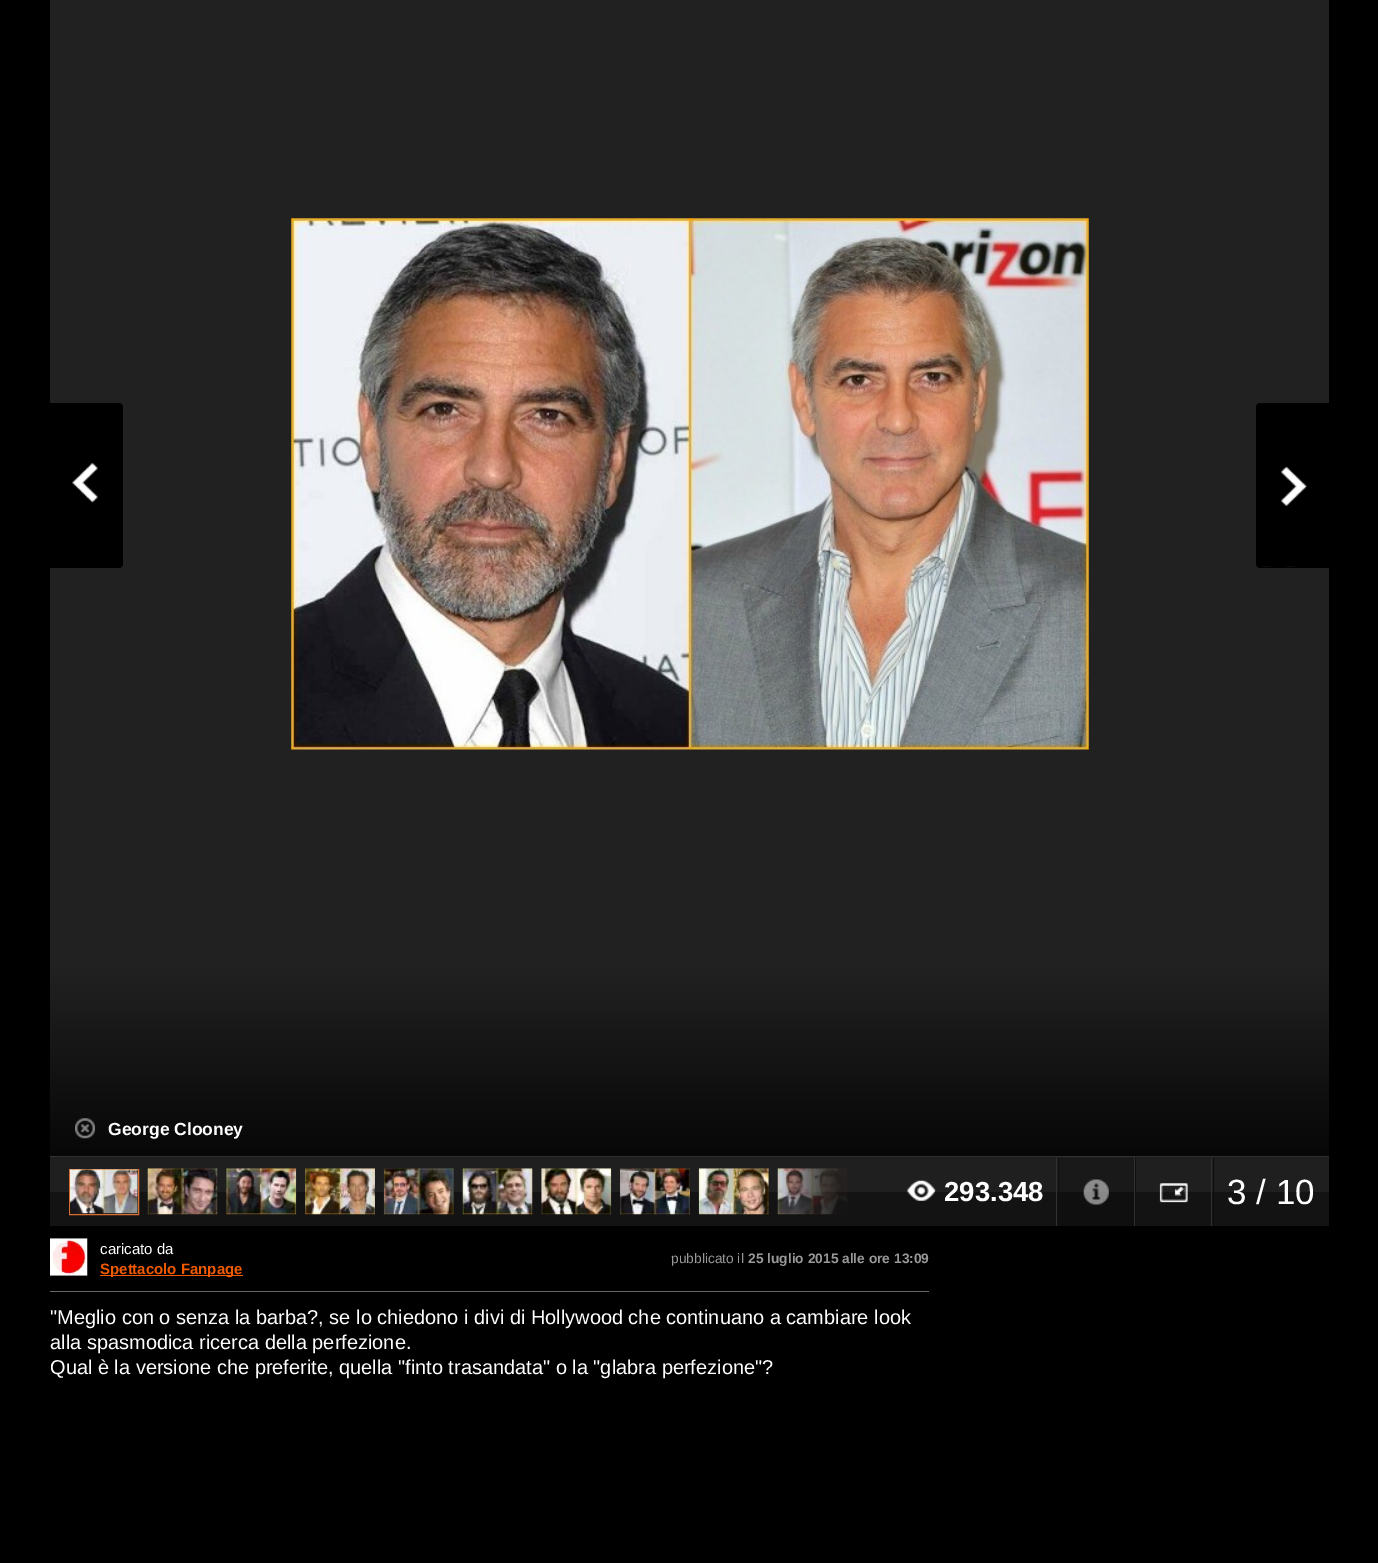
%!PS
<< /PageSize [1378 1563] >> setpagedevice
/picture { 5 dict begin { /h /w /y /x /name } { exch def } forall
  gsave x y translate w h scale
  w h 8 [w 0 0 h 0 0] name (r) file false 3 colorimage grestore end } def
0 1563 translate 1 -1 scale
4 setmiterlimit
0 setgray
0 0 1378 1563 rectfill
0.129 setgray
50 0 1279 970 rectfill
0 setgray
newpath 50 403 moveto 119 403 lineto 121 403 123 405 123 407 curveto 123 564 lineto 123 566 121 568 119 568 curveto 50 568 lineto closepath fill
(img1.rgb) 72 463 26 40 picture
(img2.rgb) 291 218 798 532 picture
newpath 1260 403 moveto 1329 403 lineto 1329 568 lineto 1260 568 lineto 1258 568 1256 566 1256 564 curveto 1256 407 lineto 1256 405 1258 403 1260 403 curveto closepath fill
(img3.rgb) 1262 466 45 101 picture
gsave newpath 50 970 moveto 1329 970 lineto 1329 1156 lineto 50 1156 lineto closepath clip newpath
<< /ShadingType 2 /ColorSpace /DeviceRGB /Coords [689 970 689 1158] /Extend [true true] /Function << /FunctionType 2 /Domain [0 1] /C0 [0.129 0.129 0.129] /C1 [0.027 0.027 0.027] /N 1 >> >> shfill grestore
(img4.rgb) 75 1118 20 21 picture
/LiberationSans-Bold [17.5 0 0 -17.5 0 0] selectfont
1 setgray
108 1135 moveto (George Clooney) show
0.075 setgray
50 1192 1279 34 rectfill
0.122 setgray
50 1157 1279 35 rectfill
0.192 setgray
50 1156 1279 1 rectfill
0.855 0.427 0.192 setrgbcolor
69.5 1169.5 69 45 rectstroke
(img5.rgb) 70 1169 68 45 picture
(img6.rgb) 147 1168 71 47 picture
(img7.rgb) 226 1168 71 47 picture
(img8.rgb) 305 1168 70 47 picture
(img9.rgb) 383 1168 71 47 picture
(img10.rgb) 462 1168 71 47 picture
(img11.rgb) 541 1168 71 47 picture
(img12.rgb) 620 1168 70 47 picture
(img13.rgb) 698 1168 71 47 picture
(img14.rgb) 777 1168 71 47 picture
0.059 setgray
1059 1192 75 34 rectfill
0.098 setgray
1059 1158 75 34 rectfill
(img15.rgb) 777 1168 71 47 picture
0.192 setgray
1056 1158 1 68 rectfill
(img16.rgb) 907 1180 29 21 picture
/LiberationSans-Bold [27.5 0 0 -27.5 0 0] selectfont
1 setgray
944 1201 moveto (293.348) show
0.192 setgray
1134 1158 1 68 rectfill
0.059 setgray
1058 1158 1 68 rectfill
(img17.rgb) 1083 1179 26 26 picture
0.192 setgray
1211 1158 1 68 rectfill
0.059 setgray
1135 1158 1 68 rectfill
(img18.rgb) 1159 1183 29 20 picture
1213 1158 1 68 rectfill
/LiberationSans-Regular [35 0 0 -35 0 0] selectfont
1 setgray
1227 1204 moveto (3 / 10) show
0.4 setgray
50 1291 879 1 rectfill
(img19.rgb) 50 1238 38 38 picture
/LiberationSans-Regular [15 0 0 -15 0 0] selectfont
1 setgray
100 1254 moveto (caricato da) show
0.949 0.353 0 setrgbcolor
100 1275 143 1 rectfill
/LiberationSans-Bold [15 0 0 -15 0 0] selectfont
100 1274 moveto (Spettacolo Fanpage) show
/LiberationSans-Regular [13.75 0 0 -13.75 0 0] selectfont
0.6 setgray
671 1263 moveto (pubblicato il) show
/LiberationSans-Bold [13.75 0 0 -13.75 0 0] selectfont
748 1263 moveto (25 luglio 2015 alle ore 13:09) show
/LiberationSans-Regular [20 0 0 -20 0 0] selectfont
1 setgray
50 1324 moveto ("Meglio con o senza la barba?, se lo chiedono i divi di Hollywood che continuano a cambiare look) show
50 1349 moveto (alla spasmodica ricerca della perfezione.) show
50 1374 moveto (Qual è la versione che preferite, quella "finto trasandata" o la "glabra perfezione"?) show
showpage
